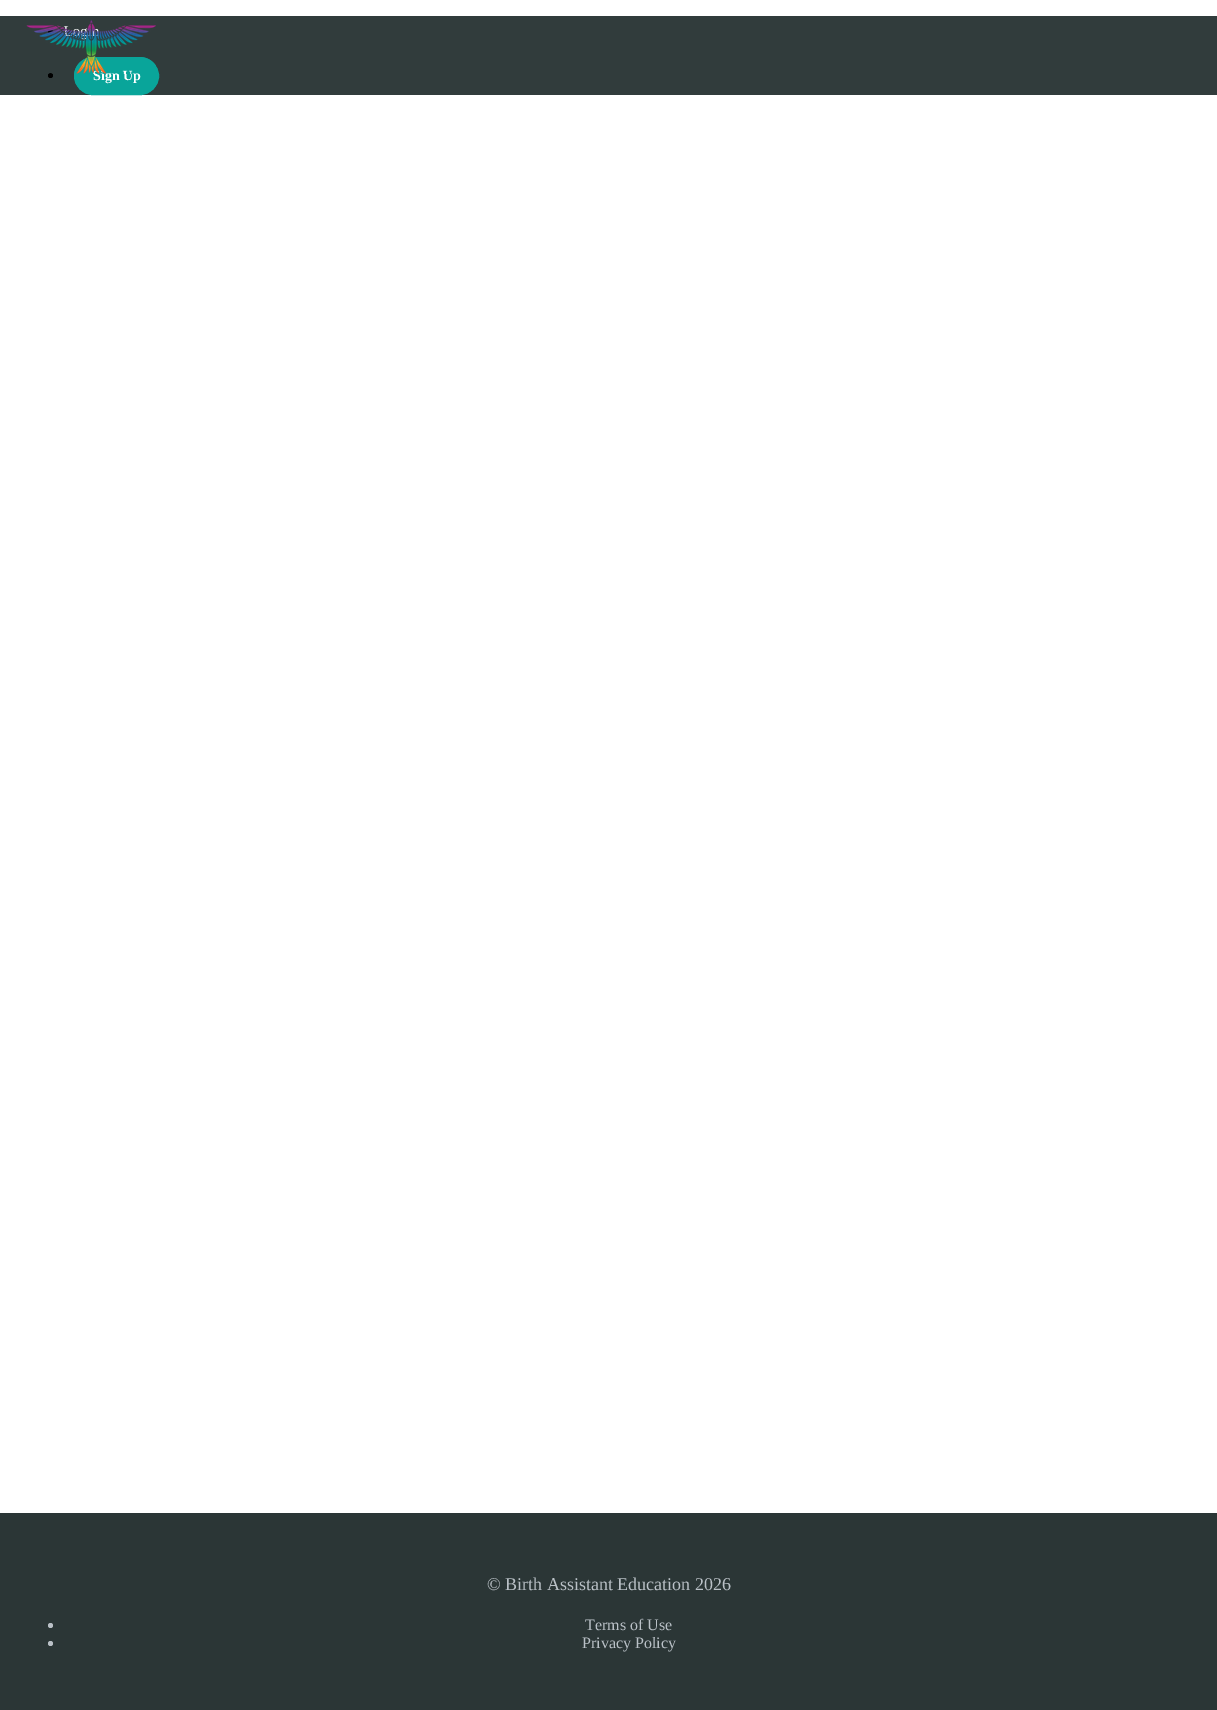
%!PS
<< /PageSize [1217 1710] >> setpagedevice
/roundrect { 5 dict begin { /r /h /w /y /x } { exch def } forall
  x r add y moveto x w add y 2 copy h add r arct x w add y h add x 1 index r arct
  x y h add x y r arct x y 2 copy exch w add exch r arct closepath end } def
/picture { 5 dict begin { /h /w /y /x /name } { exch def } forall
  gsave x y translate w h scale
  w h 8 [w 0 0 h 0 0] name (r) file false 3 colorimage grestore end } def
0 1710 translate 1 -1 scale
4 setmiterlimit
1 setgray
0 0 1217 1710 rectfill
0.192 0.235 0.235 setrgbcolor
0 16 1217 79 rectfill
0 setgray
newpath 50.5 31.5 2.5 0 360 arc closepath fill
newpath 50.5 75.5 2.5 0 360 arc closepath fill
0.035 0.647 0.604 setrgbcolor
74.5 57.5 84 37 18.5 roundrect gsave fill grestore
stroke
/LiberationSerif-Bold [14 0 0 -14 0 0] selectfont
1 setgray
93 80 moveto (Sign Up) show
(img1.rgb) 26 19 130 55 picture
0.169 0.212 0.212 setrgbcolor
0 1513 1217 197 rectfill
/LiberationSerif-Regular [18 0 0 -18 0 0] selectfont
0.729 0.757 0.78 setrgbcolor
487 1590 moveto (© Birth Assistant Education 2026) show
newpath 50.5 1625.5 2.5 0 360 arc closepath fill
/LiberationSerif-Regular [16 0 0 -16 0 0] selectfont
585 1630 moveto (Terms of Use) show
newpath 50.5 1643.5 2.5 0 360 arc closepath fill
582 1648 moveto (Privacy Policy) show
showpage
